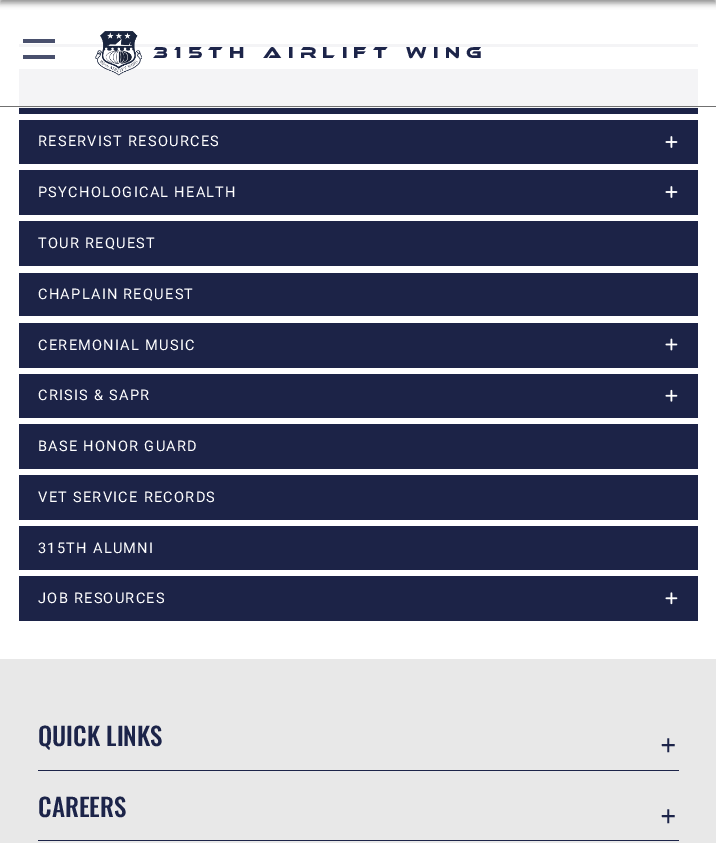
%!PS
<< /PageSize [716 843] /PageUsesTransparency true >> setpagedevice
/alpha { dup .setfillconstantalpha .setstrokeconstantalpha } def
/roundrect { 5 dict begin { /r /h /w /y /x } { exch def } forall
  x r add y moveto x w add y 2 copy h add r arct x w add y h add x 1 index r arct
  x y h add x y r arct x y 2 copy exch w add exch r arct closepath end } def
/shadow { 12 dict begin { /a /b /q /h /w /y /x } { exch def } forall gsave /was 0 def
  9 -2 -9 { dup b mul 4 div /e exch def 1 sub .425 mul 2.718 exch exp 1 add a .99 .min exch div /now exch def
    1 1 now sub 1 was sub div sub alpha /was now def
    w h .min e 2 mul add 0 gt { x e sub y e sub w e 2 mul add h e 2 mul add
      q e add b .6 mul add w h .min 2 div e add .min 0 .max roundrect fill } if } for grestore end } def
/picture { 5 dict begin { /h /w /y /x /name } { exch def } forall
  gsave x y translate w h scale
  w h 8 [w 0 0 h 0 0] name (r) file false 3 colorimage grestore end } def
0 .pushpdf14devicefilter
0 843 translate 1 -1 scale
4 setmiterlimit
1 setgray
0 0 716 843 rectfill
0 setgray
0 -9 716 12 0 3 0.45 shadow
0.957 0.957 0.965 setrgbcolor
19 69 679 39 rectfill
0.439 setgray
0 106 716 1 rectfill
0.286 0.314 0.427 setrgbcolor
23 39 32 4 0.5 roundrect fill
23 55 32 4 0.5 roundrect fill
0.957 0.957 0.965 setrgbcolor
19 44 679 3 rectfill
(img1.rgb) 95 31 47 45 picture
/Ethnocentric-Regular [16.25 0 0 -16.25 0 0] selectfont
0.11 0.141 0.286 setrgbcolor
153 58 moveto 6.25 0 (315th Airlift Wing) ashow
0.11 0.137 0.278 setrgbcolor
19 108 679 6 rectfill
19 120 679 44 rectfill
/Roboto-Regular [14.6 0 0 -14.6 0 0] selectfont
1 setgray
38 146 moveto 1.25 0 (RESERVIST RESOURCES) ashow
(img2.rgb) 665 136 13 12 picture
0.11 0.137 0.278 setrgbcolor
19 170 679 45 rectfill
1 setgray
38 197 moveto 1.25 0 (PSYCHOLOGICAL HEALTH) ashow
(img2.rgb) 665 186 13 12 picture
0.11 0.137 0.278 setrgbcolor
19 221 679 45 rectfill
1 setgray
38 248 moveto 1.25 0 (TOUR REQUEST) ashow
0.11 0.137 0.278 setrgbcolor
19 273 679 43 rectfill
1 setgray
38 299 moveto 1.25 0 (CHAPLAIN REQUEST) ashow
0.11 0.137 0.278 setrgbcolor
19 323 679 45 rectfill
1 setgray
38 350 moveto 1.25 0 (CEREMONIAL MUSIC) ashow
(img3.rgb) 665 338 13 13 picture
0.11 0.137 0.278 setrgbcolor
19 374 679 44 rectfill
1 setgray
38 400 moveto 1.25 0 (CRISIS & SAPR) ashow
(img4.rgb) 665 389 13 13 picture
0.11 0.137 0.278 setrgbcolor
19 424 679 45 rectfill
1 setgray
38 451 moveto 1.25 0 (BASE HONOR GUARD) ashow
0.11 0.137 0.278 setrgbcolor
19 475 679 45 rectfill
1 setgray
38 502 moveto 1.25 0 (VET SERVICE RECORDS) ashow
0.11 0.137 0.278 setrgbcolor
19 526 679 44 rectfill
1 setgray
38 553 moveto 1.25 0 (315TH ALUMNI) ashow
0.11 0.137 0.278 setrgbcolor
19 576 679 45 rectfill
1 setgray
38 603 moveto 1.25 0 (JOB RESOURCES) ashow
(img5.rgb) 665 592 13 13 picture
0.91 setgray
0 659 716 184 rectfill
0.11 0.141 0.286 setrgbcolor
38 770 641 1 rectfill
/Oswald-Medium [25 0 0 -25 0 0] selectfont
38 746 moveto (QUICK LINKS) show
/Oswald-Light [38 0 0 -38 0 0] selectfont
661 761 moveto (+) show
38 840 641 1 rectfill
/Oswald-Medium [25 0 0 -25 0 0] selectfont
38 817 moveto (CAREERS) show
/Oswald-Light [38 0 0 -38 0 0] selectfont
661 832 moveto (+) show
.poppdf14devicefilter showpage
